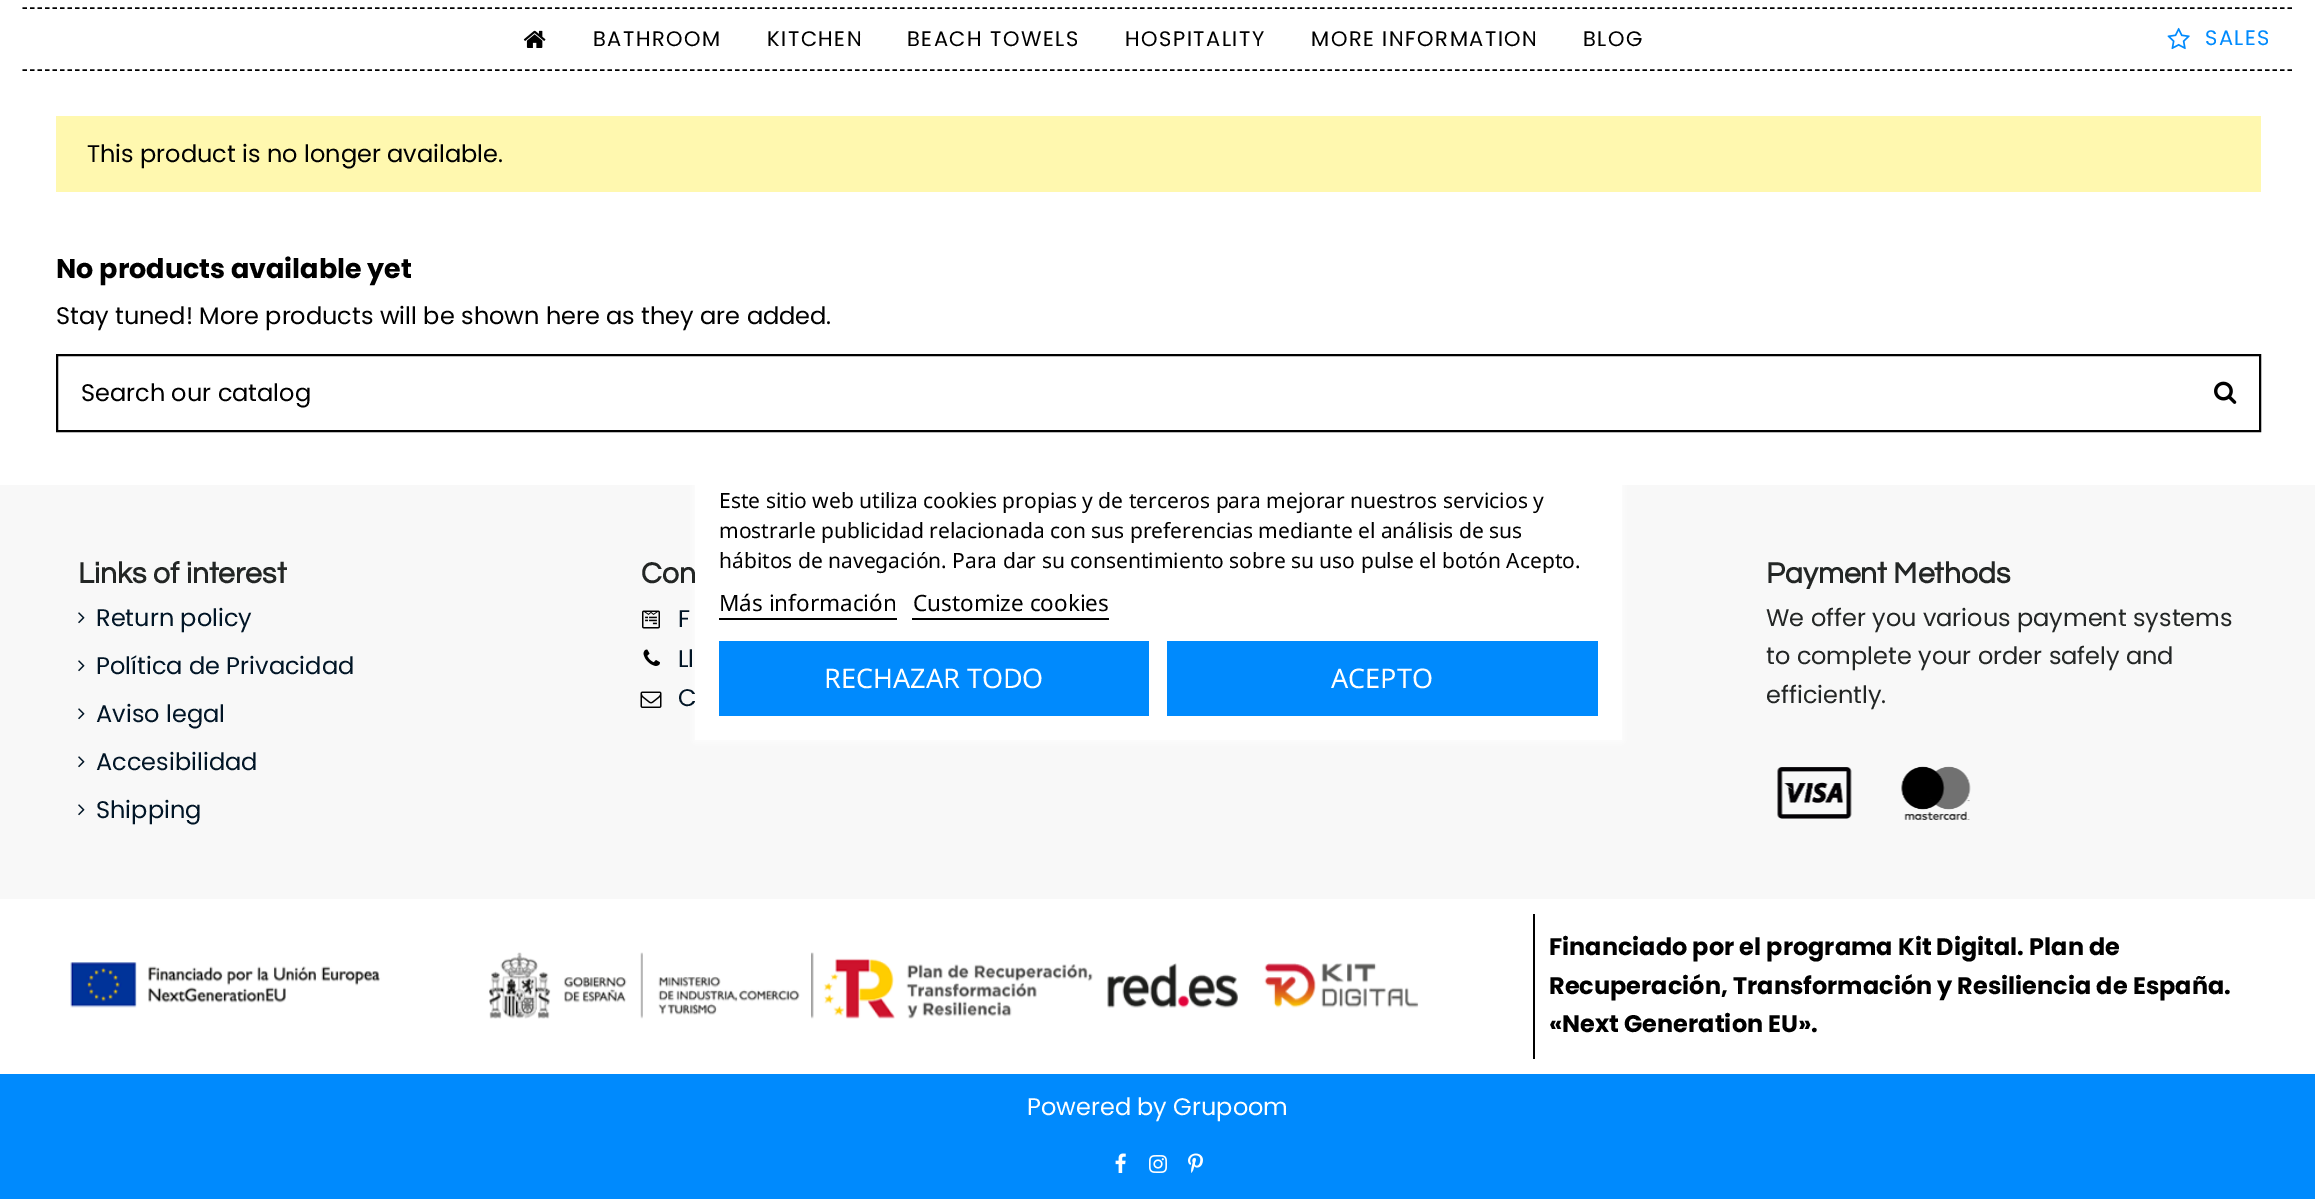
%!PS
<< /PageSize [2315 1199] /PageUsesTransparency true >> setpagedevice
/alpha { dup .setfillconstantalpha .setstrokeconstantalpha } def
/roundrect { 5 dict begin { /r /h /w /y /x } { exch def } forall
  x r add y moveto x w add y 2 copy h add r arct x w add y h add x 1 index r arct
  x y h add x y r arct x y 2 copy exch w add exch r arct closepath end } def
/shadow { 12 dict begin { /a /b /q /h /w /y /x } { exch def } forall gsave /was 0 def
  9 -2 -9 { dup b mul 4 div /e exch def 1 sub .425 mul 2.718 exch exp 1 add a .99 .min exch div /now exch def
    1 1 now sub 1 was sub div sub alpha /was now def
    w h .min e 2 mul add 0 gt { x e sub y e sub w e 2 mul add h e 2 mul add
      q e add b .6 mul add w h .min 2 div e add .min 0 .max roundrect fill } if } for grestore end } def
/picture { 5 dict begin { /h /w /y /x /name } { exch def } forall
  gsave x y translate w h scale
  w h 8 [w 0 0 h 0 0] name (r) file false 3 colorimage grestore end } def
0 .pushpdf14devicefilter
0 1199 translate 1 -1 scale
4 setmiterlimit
1 setgray
0 0 2315 1199 rectfill
0 setgray
1.5 setlinewidth
[4.5 3] 0 setdash
newpath 22.5 8 moveto 2293.5 8 lineto stroke
newpath 22.5 70 moveto 2293.5 70 lineto stroke
(img1.rgb) 523 30 23 18 picture
/Poppins-Regular [21 0 0 -21 0 0] selectfont
593 46 moveto 1.5 0 (BATHROOM) ashow
767 46 moveto 1.5 0 (KITCHEN) ashow
907 46 moveto 1.5 0 (BEACH TOWELS) ashow
1125 46 moveto 1.5 0 (HOSPITALITY) ashow
1311 46 moveto 1.5 0 (MORE INFORMATION) ashow
1583 46 moveto 1.5 0 (BLOG) ashow
(img2.rgb) 2167 27 23 23 picture
0 0.541 0.992 setrgbcolor
2205 45 moveto 1.5 0 (SALES) ashow
1 0.973 0.686 setrgbcolor
56 116 2205 76 rectfill
/Poppins-Regular [24 0 0 -24 0 0] selectfont
0 setgray
87 162 moveto (This product is no longer available.) show
/Poppins-Bold [27 0 0 -27 0 0] selectfont
56 278 moveto (No products available yet) show
/Poppins-Regular [24 0 0 -24 0 0] selectfont
56 324 moveto (Stay tuned! More products will be shown here as they are added.) show
2 setlinewidth
[] 0 setdash
57 355 2203 76 rectstroke
81 401 moveto (Search our catalog) show
(img3.rgb) 2214 381 23 23 picture
0.973 setgray
0 485 2315 414 rectfill
1 setgray
695 464 927 277 0 4 1 shadow
0.004 0.082 0.149 setrgbcolor
678 706 moveto (C) show
1 setgray
695 485 927 255 rectfill
/NotoSans-Regular [21 0 0 -21 0 0] selectfont
0 setgray
719 508 moveto (Este sitio web utiliza cookies propias y de terceros para mejorar nuestros servicios y) show
719 538 moveto (mostrarle publicidad relacionada con sus preferencias mediante el análisis de sus) show
719 568 moveto (hábitos de navegación. Para dar su consentimiento sobre su uso pulse el botón Acepto.) show
/NotoSans-Regular [22.5 0 0 -22.5 0 0] selectfont
719 611 moveto (Más información) show
719 618 178 2 rectfill
913 611 moveto (Customize cookies) show
912 618 197 2 rectfill
0 0.541 0.992 setrgbcolor
719 641 430 75 rectfill
/NotoSans-Regular [27 0 0 -27 0 0] selectfont
1 setgray
824 688 moveto (RECHAZAR TODO) show
0 0.541 0.992 setrgbcolor
1167 641 431 75 rectfill
1 setgray
1331 688 moveto (ACEPTO) show
/Questrial-Bold [30 0 0 -30 0 0] selectfont
0.137 0.149 0.145 setrgbcolor
78 583 moveto (Links of interest) show
(img4.rgb) 78 612 7 12 picture
/Poppins-Regular [24 0 0 -24 0 0] selectfont
0.004 0.082 0.149 setrgbcolor
96 626 moveto (Return policy) show
(img4.rgb) 78 660 7 12 picture
96 674 moveto (Política de Privacidad) show
(img4.rgb) 78 708 7 12 picture
96 722 moveto (Aviso legal) show
(img4.rgb) 78 756 7 12 picture
96 770 moveto (Accesibilidad) show
(img4.rgb) 78 804 7 12 picture
96 818 moveto (Shipping) show
/Questrial-Bold [30 0 0 -30 0 0] selectfont
0.137 0.149 0.145 setrgbcolor
641 583 moveto (Con) show
(img5.rgb) 642 610 18 19 picture
/Poppins-Regular [24 0 0 -24 0 0] selectfont
0.004 0.082 0.149 setrgbcolor
678 627 moveto (F) show
(img6.rgb) 643 649 17 17 picture
678 667 moveto (Ll) show
(img7.rgb) 640 691 22 17 picture
/Questrial-Bold [30 0 0 -30 0 0] selectfont
0.137 0.149 0.145 setrgbcolor
1766 583 moveto (Payment Methods) show
/Poppins-Regular [24 0 0 -24 0 0] selectfont
1766 626 moveto (We offer you various payment systems) show
1766 664 moveto (to complete your order safely and) show
1766 703 moveto (efficiently.) show
(img8.rgb) 1777 767 75 52 picture
(img9.rgb) 1901 766 70 54 picture
(img10.rgb) 70 952 1349 67 picture
0 setgray
1533 914 2 145 rectfill
/Poppins-Bold [24 0 0 -24 0 0] selectfont
1549 955 moveto (Financiado por el programa Kit Digital. Plan de) show
1549 994 moveto (Recuperación, Transformación y Resiliencia de España.) show
1549 1032 moveto («Next Generation EU».) show
0 0.541 0.992 setrgbcolor
0 1074 2315 125 rectfill
/Poppins-Regular [24 0 0 -24 0 0] selectfont
1 setgray
1027 1115 moveto (Powered by Grupoom) show
(img11.rgb) 1115 1153 11 20 picture
(img12.rgb) 1149 1155 18 18 picture
(img13.rgb) 1188 1153 15 20 picture
.poppdf14devicefilter showpage
